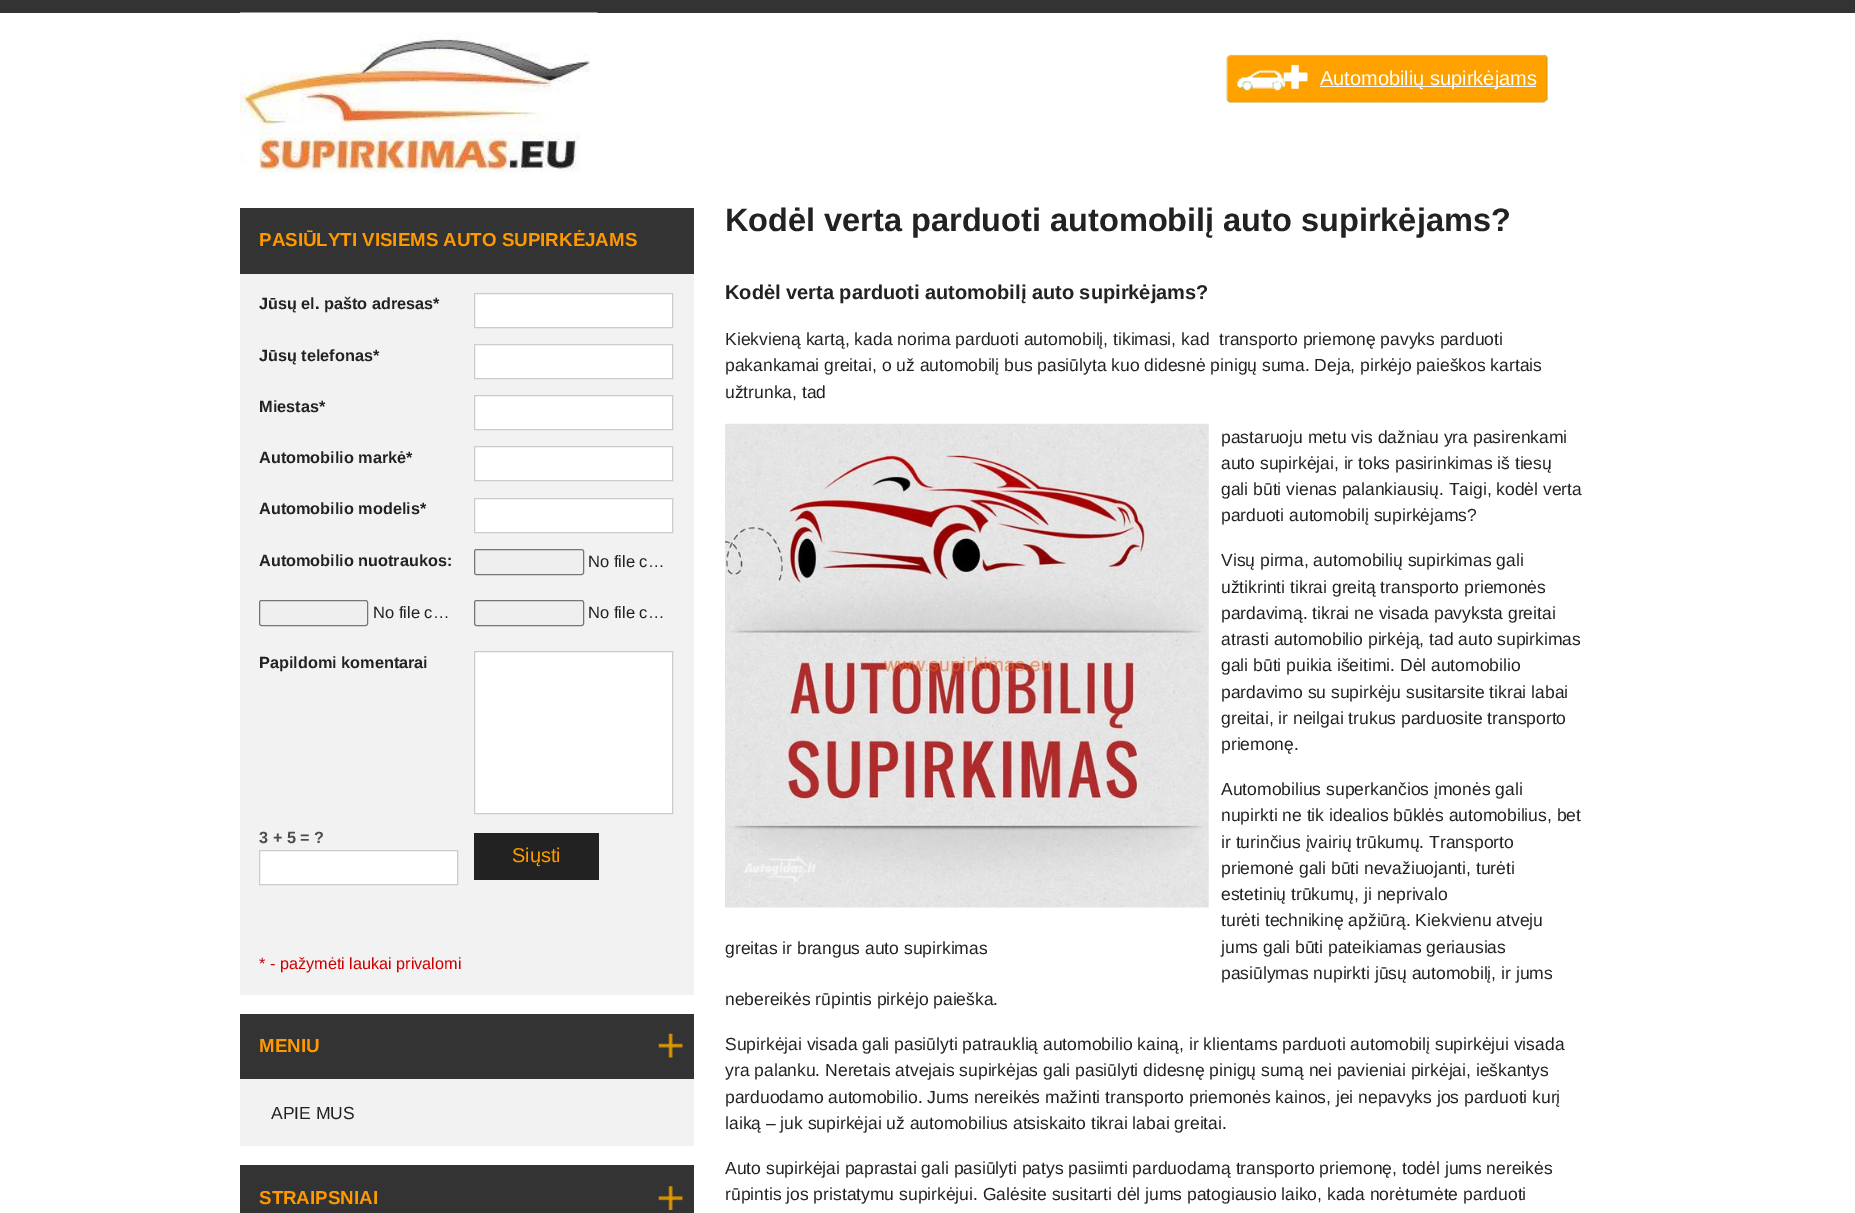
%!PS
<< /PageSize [1855 1213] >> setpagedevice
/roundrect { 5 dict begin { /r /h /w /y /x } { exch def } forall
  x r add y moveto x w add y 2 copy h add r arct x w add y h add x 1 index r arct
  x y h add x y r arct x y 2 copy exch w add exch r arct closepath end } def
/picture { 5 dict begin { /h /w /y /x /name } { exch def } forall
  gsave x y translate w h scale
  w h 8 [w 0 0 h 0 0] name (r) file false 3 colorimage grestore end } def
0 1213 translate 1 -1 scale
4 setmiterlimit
1 setgray
0 0 1855 1213 rectfill
0.2 setgray
0 0 1855 13 rectfill
(img1.rgb) 240 12 358 162 picture
(img2.rgb) 1226 54 322 49 picture
1 setgray
1320 86 216 1 rectfill
/LiberationSans-Regular [20 0 0 -20 0 0] selectfont
1320 85 moveto (Automobilių supirkėjams) show
0.949 setgray
240 274 454 721 rectfill
0.2 setgray
240 208 454 66 rectfill
/LiberationSans-Bold [18.75 0 0 -18.75 0 0] selectfont
1 0.6 0 setrgbcolor
259 246 moveto (PASIŪLYTI VISIEMS AUTO SUPIRKĖJAMS) show
/LiberationSans-Bold [16.25 0 0 -16.25 0 0] selectfont
0.133 setgray
259 309 moveto (Jūsų el. pašto adresas*) show
1 setgray
newpath 474.5 293.5 moveto 672.5 293.5 lineto 672.5 327.5 lineto 474.5 327.5 lineto closepath gsave fill grestore
0.8 setgray
stroke
0.133 setgray
259 361 moveto (Jūsų telefonas*) show
1 setgray
newpath 474.5 344.5 moveto 672.5 344.5 lineto 672.5 378.5 lineto 474.5 378.5 lineto closepath gsave fill grestore
0.8 setgray
stroke
0.133 setgray
259 412 moveto (Miestas*) show
1 setgray
newpath 474.5 395.5 moveto 672.5 395.5 lineto 672.5 429.5 lineto 474.5 429.5 lineto closepath gsave fill grestore
0.8 setgray
stroke
0.133 setgray
259 463 moveto (Automobilio markė*) show
1 setgray
newpath 474.5 446.5 moveto 672.5 446.5 lineto 672.5 480.5 lineto 474.5 480.5 lineto closepath gsave fill grestore
0.8 setgray
stroke
0.133 setgray
259 514 moveto (Automobilio modelis*) show
1 setgray
newpath 474.5 498.5 moveto 672.5 498.5 lineto 672.5 532.5 lineto 474.5 532.5 lineto closepath gsave fill grestore
0.8 setgray
stroke
0.133 setgray
259 566 moveto (Automobilio nuotraukos:) show
0.937 setgray
474.5 549.5 109 25 2 roundrect gsave fill grestore
0.463 setgray
stroke
/LiberationSans-Regular [16.5 0 0 -16.5 0 0] selectfont
0.133 setgray
588 567 moveto (No file c…) show
0.937 setgray
259.5 600.5 108 25 2 roundrect gsave fill grestore
0.463 setgray
stroke
0.133 setgray
373 618 moveto (No file c…) show
0.937 setgray
474.5 600.5 109 25 2 roundrect gsave fill grestore
0.463 setgray
stroke
0.133 setgray
588 618 moveto (No file c…) show
/LiberationSans-Bold [16.25 0 0 -16.25 0 0] selectfont
259 668 moveto (Papildomi komentarai) show
1 setgray
newpath 474.5 651.5 moveto 672.5 651.5 lineto 672.5 813.5 lineto 474.5 813.5 lineto closepath gsave fill grestore
0.8 setgray
stroke
0.302 setgray
259 843 moveto (3 + 5 = ?) show
1 setgray
newpath 259.5 850.5 moveto 457.5 850.5 lineto 457.5 884.5 lineto 259.5 884.5 lineto closepath gsave fill grestore
0.8 setgray
stroke
0.133 setgray
474 833 125 47 rectfill
/LiberationSans-Regular [20 0 0 -20 0 0] selectfont
1 0.6 0 setrgbcolor
512 862 moveto (Siųsti) show
/LiberationSans-Regular [16.25 0 0 -16.25 0 0] selectfont
0.8 0 0 setrgbcolor
259 969 moveto (* - pažymėti laukai privalomi) show
0.949 setgray
240 1079 454 67 rectfill
0.2 setgray
240 1014 454 65 rectfill
(img3.rgb) 658 1033 25 25 picture
/LiberationSans-Bold [18.75 0 0 -18.75 0 0] selectfont
1 0.6 0 setrgbcolor
259 1052 moveto (MENIU) show
/LiberationSans-Regular [17.5 0 0 -17.5 0 0] selectfont
0.133 setgray
271 1119 moveto (APIE MUS) show
0.2 setgray
240 1165 454 48 rectfill
(img4.rgb) 658 1186 25 24 picture
/LiberationSans-Bold [18.75 0 0 -18.75 0 0] selectfont
1 0.6 0 setrgbcolor
259 1204 moveto (STRAIPSNIAI) show
/LiberationSans-Bold [32.5 0 0 -32.5 0 0] selectfont
0.133 setgray
725 231 moveto (Kodėl verta parduoti automobilį auto supirkėjams?) show
/LiberationSans-Bold [20 0 0 -20 0 0] selectfont
725 299 moveto (Kodėl verta parduoti automobilį auto supirkėjams?) show
/LiberationSans-Regular [17.5 0 0 -17.5 0 0] selectfont
725 345 moveto (Kiekvieną kartą, kada norima parduoti automobilį, tikimasi, kad  transporto priemonę pavyks parduoti) show
725 371 moveto (pakankamai greitai, o už automobilį bus pasiūlyta kuo didesnė pinigų suma. Deja, pirkėjo paieškos kartais) show
725 398 moveto (užtrunka, tad) show
1221 443 moveto (pastaruoju metu vis dažniau yra pasirenkami) show
1221 469 moveto (auto supirkėjai, ir toks pasirinkimas iš tiesų) show
1221 495 moveto (gali būti vienas palankiausių. Taigi, kodėl verta) show
1221 521 moveto (parduoti automobilį supirkėjams?) show
1221 566 moveto (Visų pirma, automobilių supirkimas gali) show
1221 593 moveto (užtikrinti tikrai greitą transporto priemonės) show
1221 619 moveto (pardavimą. tikrai ne visada pavyksta greitai) show
1221 645 moveto (atrasti automobilio pirkėją, tad auto supirkimas) show
1221 671 moveto (gali būti puikia išeitimi. Dėl automobilio) show
1221 698 moveto (pardavimo su supirkėju susitarsite tikrai labai) show
1221 724 moveto (greitai, ir neilgai trukus parduosite transporto) show
1221 750 moveto (priemonę.) show
1221 795 moveto (Automobilius superkančios įmonės gali) show
1221 821 moveto (nupirkti ne tik idealios būklės automobilius, bet) show
1221 848 moveto (ir turinčius įvairių trūkumų. Transporto) show
1221 874 moveto (priemonė gali būti nevažiuojanti, turėti) show
1221 900 moveto (estetinių trūkumų, ji neprivalo) show
1221 926 moveto (turėti technikinę apžiūrą. Kiekvienu atveju) show
1221 953 moveto (jums gali būti pateikiamas geriausias) show
1221 979 moveto (pasiūlymas nupirkti jūsų automobilį, ir jums) show
725 1005 moveto (nebereikės rūpintis pirkėjo paieška.) show
(img5.rgb) 725 423 484 485 picture
725 954 moveto (greitas ir brangus auto supirkimas) show
725 1050 moveto (Supirkėjai visada gali pasiūlyti patrauklią automobilio kainą, ir klientams parduoti automobilį supirkėjui visada) show
725 1076 moveto (yra palanku. Neretais atvejais supirkėjas gali pasiūlyti didesnę pinigų sumą nei pavieniai pirkėjai, ieškantys) show
725 1103 moveto (parduodamo automobilio. Jums nereikės mažinti transporto priemonės kainos, jei nepavyks jos parduoti kurį) show
725 1129 moveto (laiką – juk supirkėjai už automobilius atsiskaito tikrai labai greitai.) show
725 1174 moveto (Auto supirkėjai paprastai gali pasiūlyti patys pasiimti parduodamą transporto priemonę, todėl jums nereikės) show
725 1200 moveto (rūpintis jos pristatymu supirkėjui. Galėsite susitarti dėl jums patogiausio laiko, kada norėtumėte parduoti) show
showpage
